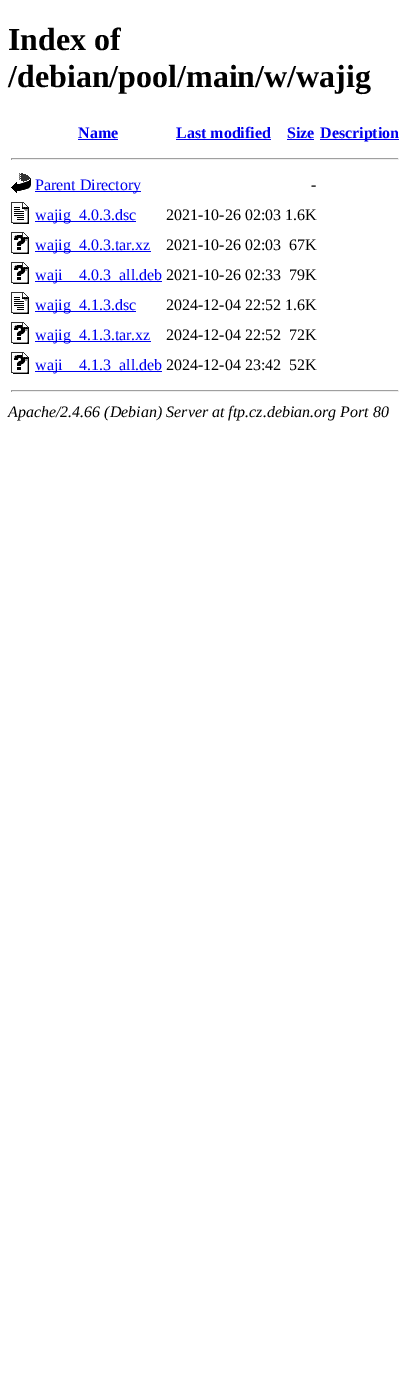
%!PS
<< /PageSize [414 1397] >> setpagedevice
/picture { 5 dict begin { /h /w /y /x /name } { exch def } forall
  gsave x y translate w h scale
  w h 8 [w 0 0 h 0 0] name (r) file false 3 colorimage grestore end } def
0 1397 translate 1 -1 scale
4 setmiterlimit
1 setgray
0 0 414 1397 rectfill
/LiberationSerif-Bold [32 0 0 -32 0 0] selectfont
0 setgray
8 50 moveto (Index of) show
8 87 moveto (/debian/pool/main/w/wajig) show
/LiberationSerif-Bold [16 0 0 -16 0 0] selectfont
0 0 0.933 setrgbcolor
78 138 moveto (Name) show
78 139 40 1 rectfill
176 138 moveto (Last modified) show
176 139 95 1 rectfill
287 138 moveto (Size) show
287 139 27 1 rectfill
320 139 79 1 rectfill
320 138 moveto (Description) show
0.624 setgray
11 158 388 1 rectfill
0.933 setgray
398 158 1 2 rectfill
11 159 388 1 rectfill
0.624 setgray
11 158 1 2 rectfill
(img1.rgb) 11 173 20 20 picture
0 0 0.933 setrgbcolor
35 191 106 1 rectfill
/LiberationSerif-Regular [16 0 0 -16 0 0] selectfont
35 190 moveto (Parent Directory) show
0 setgray
311 190 moveto (-) show
(img2.rgb) 11 202 18 22 picture
0 0 0.933 setrgbcolor
35 221 101 1 rectfill
35 220 moveto (wajig_4.0.3.dsc) show
0 setgray
166 220 moveto (2021-10-26 02:03 1.6K) show
(img3.rgb) 11 232 18 22 picture
0 0 0.933 setrgbcolor
35 251 116 1 rectfill
35 250 moveto (wajig_4.0.3.tar.xz) show
0 setgray
166 250 moveto (2021-10-26 02:03) show
289 250 moveto (67K) show
(img3.rgb) 11 262 18 22 picture
0 0 0.933 setrgbcolor
35 281 127 1 rectfill
35 280 moveto (waji) show
79 280 moveto (4.0.3_all.deb) show
0 setgray
166 280 moveto (2021-10-26 02:33) show
289 280 moveto (79K) show
(img2.rgb) 11 292 18 22 picture
0 0 0.933 setrgbcolor
35 311 101 1 rectfill
35 310 moveto (wajig_4.1.3.dsc) show
0 setgray
166 310 moveto (2024-12-04 22:52 1.6K) show
(img3.rgb) 11 322 18 22 picture
0 0 0.933 setrgbcolor
35 341 116 1 rectfill
35 340 moveto (wajig_4.1.3.tar.xz) show
0 setgray
166 340 moveto (2024-12-04 22:52) show
289 340 moveto (72K) show
(img3.rgb) 11 352 18 22 picture
0 0 0.933 setrgbcolor
35 371 127 1 rectfill
35 370 moveto (waji) show
79 370 moveto (4.1.3_all.deb) show
0 setgray
166 370 moveto (2024-12-04 23:42) show
289 370 moveto (52K) show
0.624 setgray
11 390 388 1 rectfill
0.933 setgray
398 390 1 2 rectfill
11 391 388 1 rectfill
0.624 setgray
11 390 1 2 rectfill
/LiberationSerif-Italic [16 0 0 -16 0 0] selectfont
0 setgray
8 417 moveto (Apache/2.4.66 \(Debian\) Server at ftp.cz.debian.org Port 80) show
showpage
